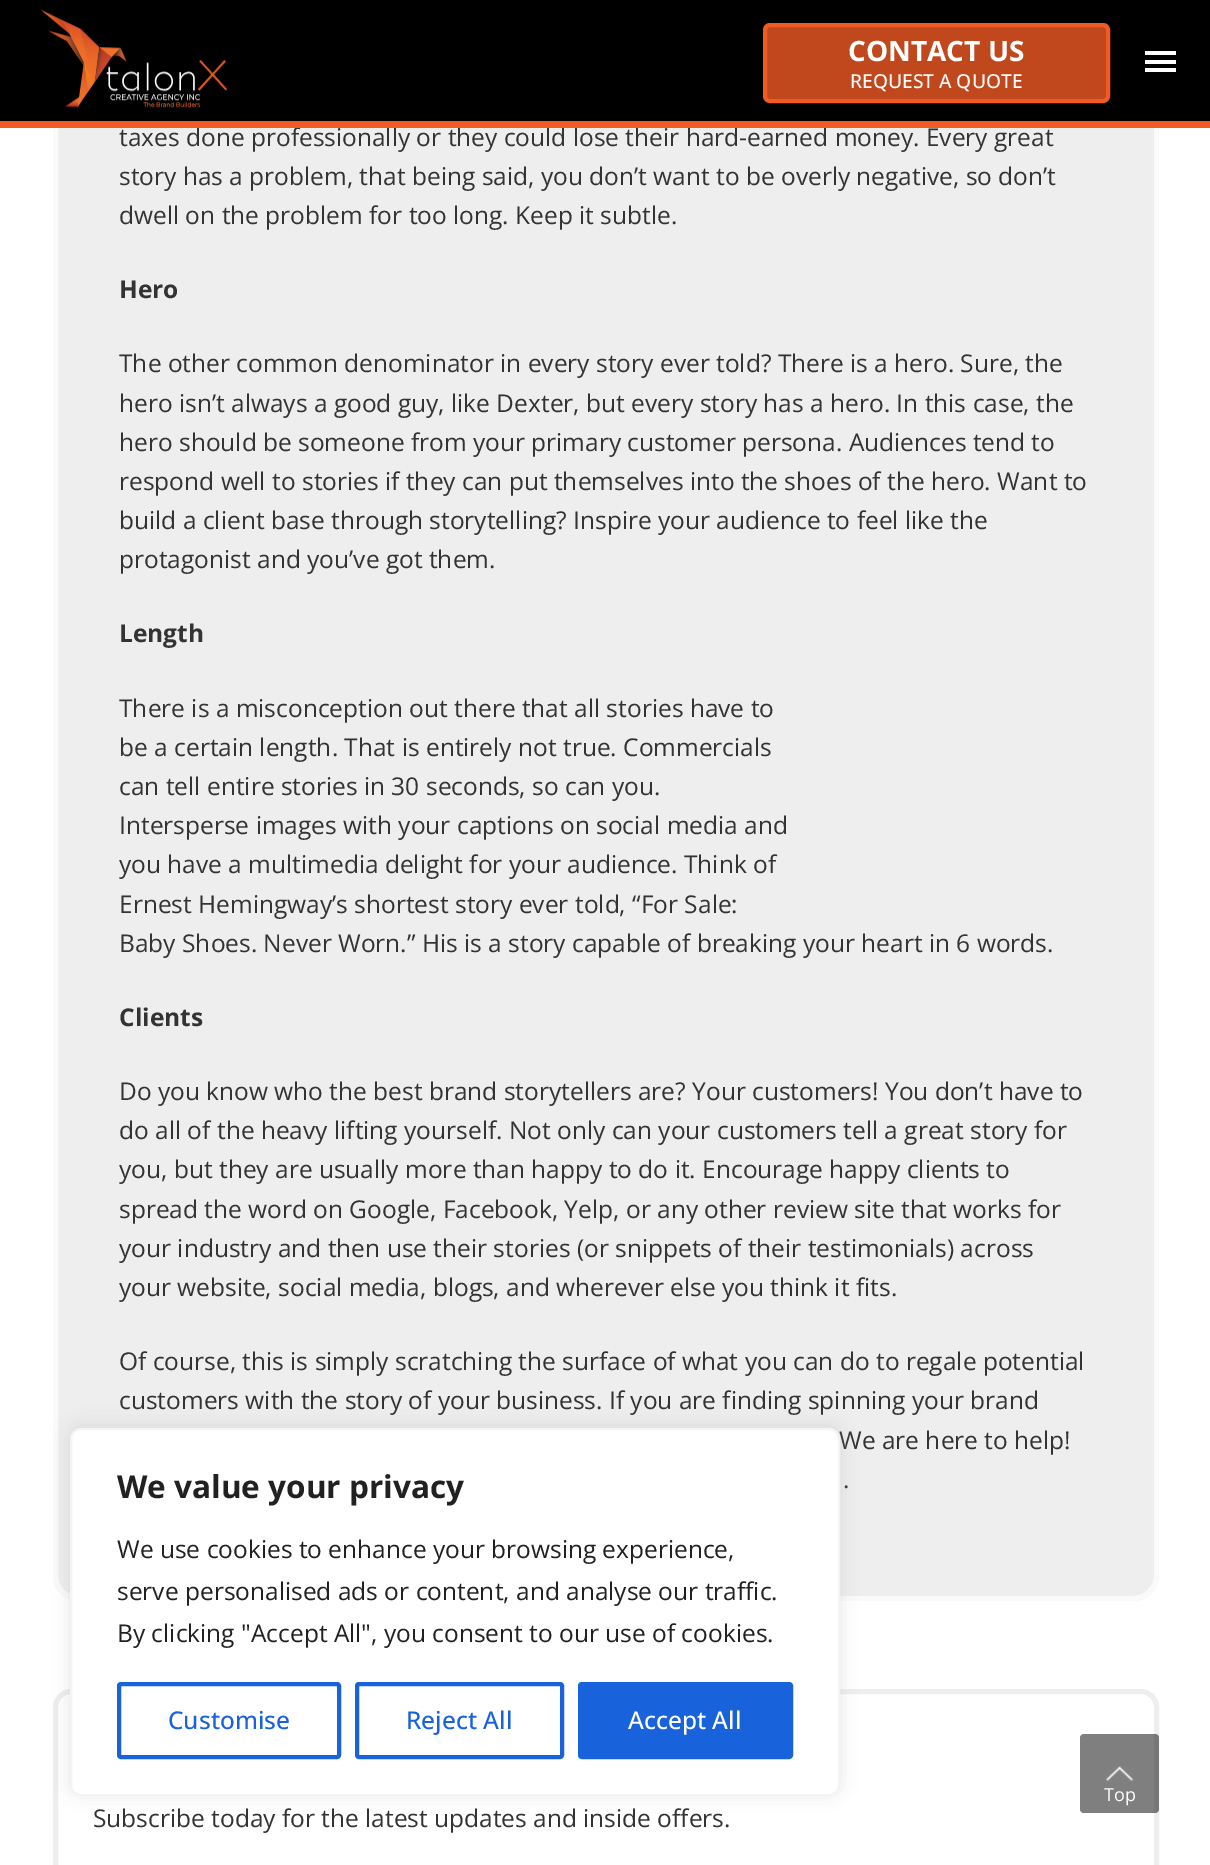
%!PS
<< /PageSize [1210 1865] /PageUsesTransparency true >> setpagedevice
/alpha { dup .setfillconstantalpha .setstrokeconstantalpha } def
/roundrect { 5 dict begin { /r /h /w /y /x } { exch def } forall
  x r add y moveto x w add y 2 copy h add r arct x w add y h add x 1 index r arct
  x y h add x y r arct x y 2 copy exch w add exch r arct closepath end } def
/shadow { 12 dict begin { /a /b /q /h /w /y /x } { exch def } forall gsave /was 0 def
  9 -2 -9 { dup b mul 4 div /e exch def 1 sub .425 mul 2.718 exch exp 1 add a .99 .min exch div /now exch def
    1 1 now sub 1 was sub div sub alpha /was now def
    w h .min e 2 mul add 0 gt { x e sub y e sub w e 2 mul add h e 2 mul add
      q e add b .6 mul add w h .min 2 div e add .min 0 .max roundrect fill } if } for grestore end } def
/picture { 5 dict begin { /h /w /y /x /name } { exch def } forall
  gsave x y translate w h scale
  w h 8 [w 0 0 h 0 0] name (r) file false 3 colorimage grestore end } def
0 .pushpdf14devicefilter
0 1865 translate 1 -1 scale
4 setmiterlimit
1 setgray
0 0 1210 1865 rectfill
0.933 setgray
53 -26 1106 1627 26 roundrect fill
0.7 alpha
1 setgray
5 setlinewidth
55.5 -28.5 1101 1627 23.5 roundrect stroke
1 alpha
0 setgray
0 0 1210 121 rectfill
(img1.rgb) 40 9 187 99 picture
0.757 0.282 0.11 setrgbcolor
765 25 343 76 5 roundrect gsave fill grestore
0.945 0.353 0.137 setrgbcolor
4 setlinewidth
stroke
/OpenSans-Bold [28 0 0 -28 0 0] selectfont
1 setgray
848 61 moveto (CONTACT US) show
/OpenSans-Medium [19.25 0 0 -19.25 0 0] selectfont
850 88 moveto (REQUEST A QUOTE) show
1145 51 31 4 rectfill
1145 60 31 4 rectfill
1145 68 31 4 rectfill
/OpenSans-Regular [24.5 0 0 -24.5 0 0] selectfont
0.2 setgray
119 146 moveto (taxes done professionally or they could lose their hard-earned money. Every great) show
0.945 0.353 0.137 setrgbcolor
0 121 1210 7 rectfill
0.2 setgray
119 185 moveto (story has a problem, that being said, you don’t want to be overly negative, so don’t) show
119 224 moveto (dwell on the problem for too long. Keep it subtle.) show
/OpenSans-Bold [24.5 0 0 -24.5 0 0] selectfont
119 298 moveto (Hero) show
/OpenSans-Regular [24.5 0 0 -24.5 0 0] selectfont
119 372 moveto (The other common denominator in every story ever told? There is a hero. Sure, the) show
119 412 moveto (hero isn’t always a good guy, like Dexter, but every story has a hero. In this case, the) show
119 451 moveto (hero should be someone from your primary customer persona. Audiences tend to) show
119 490 moveto (respond well to stories if they can put themselves into the shoes of the hero. Want to) show
119 529 moveto (build a client base through storytelling? Inspire your audience to feel like the) show
119 568 moveto (protagonist and you’ve got them.) show
/OpenSans-Bold [24.5 0 0 -24.5 0 0] selectfont
119 642 moveto (Length) show
/OpenSans-Regular [24.5 0 0 -24.5 0 0] selectfont
119 717 moveto (There is a misconception out there that all stories have to) show
119 756 moveto (be a certain length. That is entirely not true. Commercials) show
119 795 moveto (can tell entire stories in 30 seconds, so can you.) show
119 834 moveto (Intersperse images with your captions on social media and) show
119 873 moveto (you have a multimedia delight for your audience. Think of) show
119 913 moveto (Ernest Hemingway’s shortest story ever told, “For Sale:) show
119 952 moveto (Baby Shoes. Never Worn.” His is a story capable of breaking your heart in 6 words.) show
/OpenSans-Bold [24.5 0 0 -24.5 0 0] selectfont
119 1026 moveto (Clients) show
/OpenSans-Regular [24.5 0 0 -24.5 0 0] selectfont
119 1100 moveto (Do you know who the best brand storytellers are? Your customers! You don’t have to) show
119 1139 moveto (do all of the heavy lifting yourself. Not only can your customers tell a great story for) show
119 1178 moveto (you, but they are usually more than happy to do it. Encourage happy clients to) show
119 1218 moveto (spread the word on Google, Facebook, Yelp, or any other review site that works for) show
119 1257 moveto (your industry and then use their stories \(or snippets of their testimonials\) across) show
119 1296 moveto (your website, social media, blogs, and wherever else you think it fits.) show
119 1370 moveto (Of course, this is simply scratching the surface of what you can do to regale potential) show
119 1409 moveto (customers with the story of your business. If you are finding spinning your brand) show
839 1449 moveto (We are here to help!) show
843 1488 moveto (.) show
0.933 setgray
5 setlinewidth
55.5 1691.5 1101 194 15.5 roundrect stroke
0.2 setgray
93 1827 moveto (Subscribe today for the latest updates and inside offers.) show
0.675 0.671 0.671 setrgbcolor
70 1426 770 368 11 9 0.3 shadow
1 setgray
71 1429 768 366 10 roundrect gsave fill grestore
0.957 setgray
2 setlinewidth
stroke
/OpenSans-Bold [31.5 0 0 -31.5 0 0] selectfont
0.129 setgray
117 1498 moveto (We value your privacy) show
/OpenSans-Regular [24.5 0 0 -24.5 0 0] selectfont
117 1558 moveto (We use cookies to enhance your browsing experience,) show
117 1600 moveto (serve personalised ads or content, and analyse our traffic.) show
117 1642 moveto (By clicking "Accept All", you consent to our use of cookies.) show
0.094 0.388 0.863 setrgbcolor
4 setlinewidth
119 1684 220 73 2 roundrect stroke
/OpenSans-Medium [24.5 0 0 -24.5 0 0] selectfont
168 1729 moveto (Customise) show
357 1684 205 73 2 roundrect stroke
406 1729 moveto (Reject All) show
580 1684 211 73 2 roundrect gsave fill grestore
stroke
1 setgray
628 1729 moveto (Accept All) show
0.5 alpha
0 setgray
1080 1734 79 79 4 roundrect fill
1 alpha
(img2.rgb) 1105 1766 29 16 picture
/OpenSans-Regular [18 0 0 -18 0 0] selectfont
1 setgray
1104 1801 moveto (Top) show
.poppdf14devicefilter showpage
